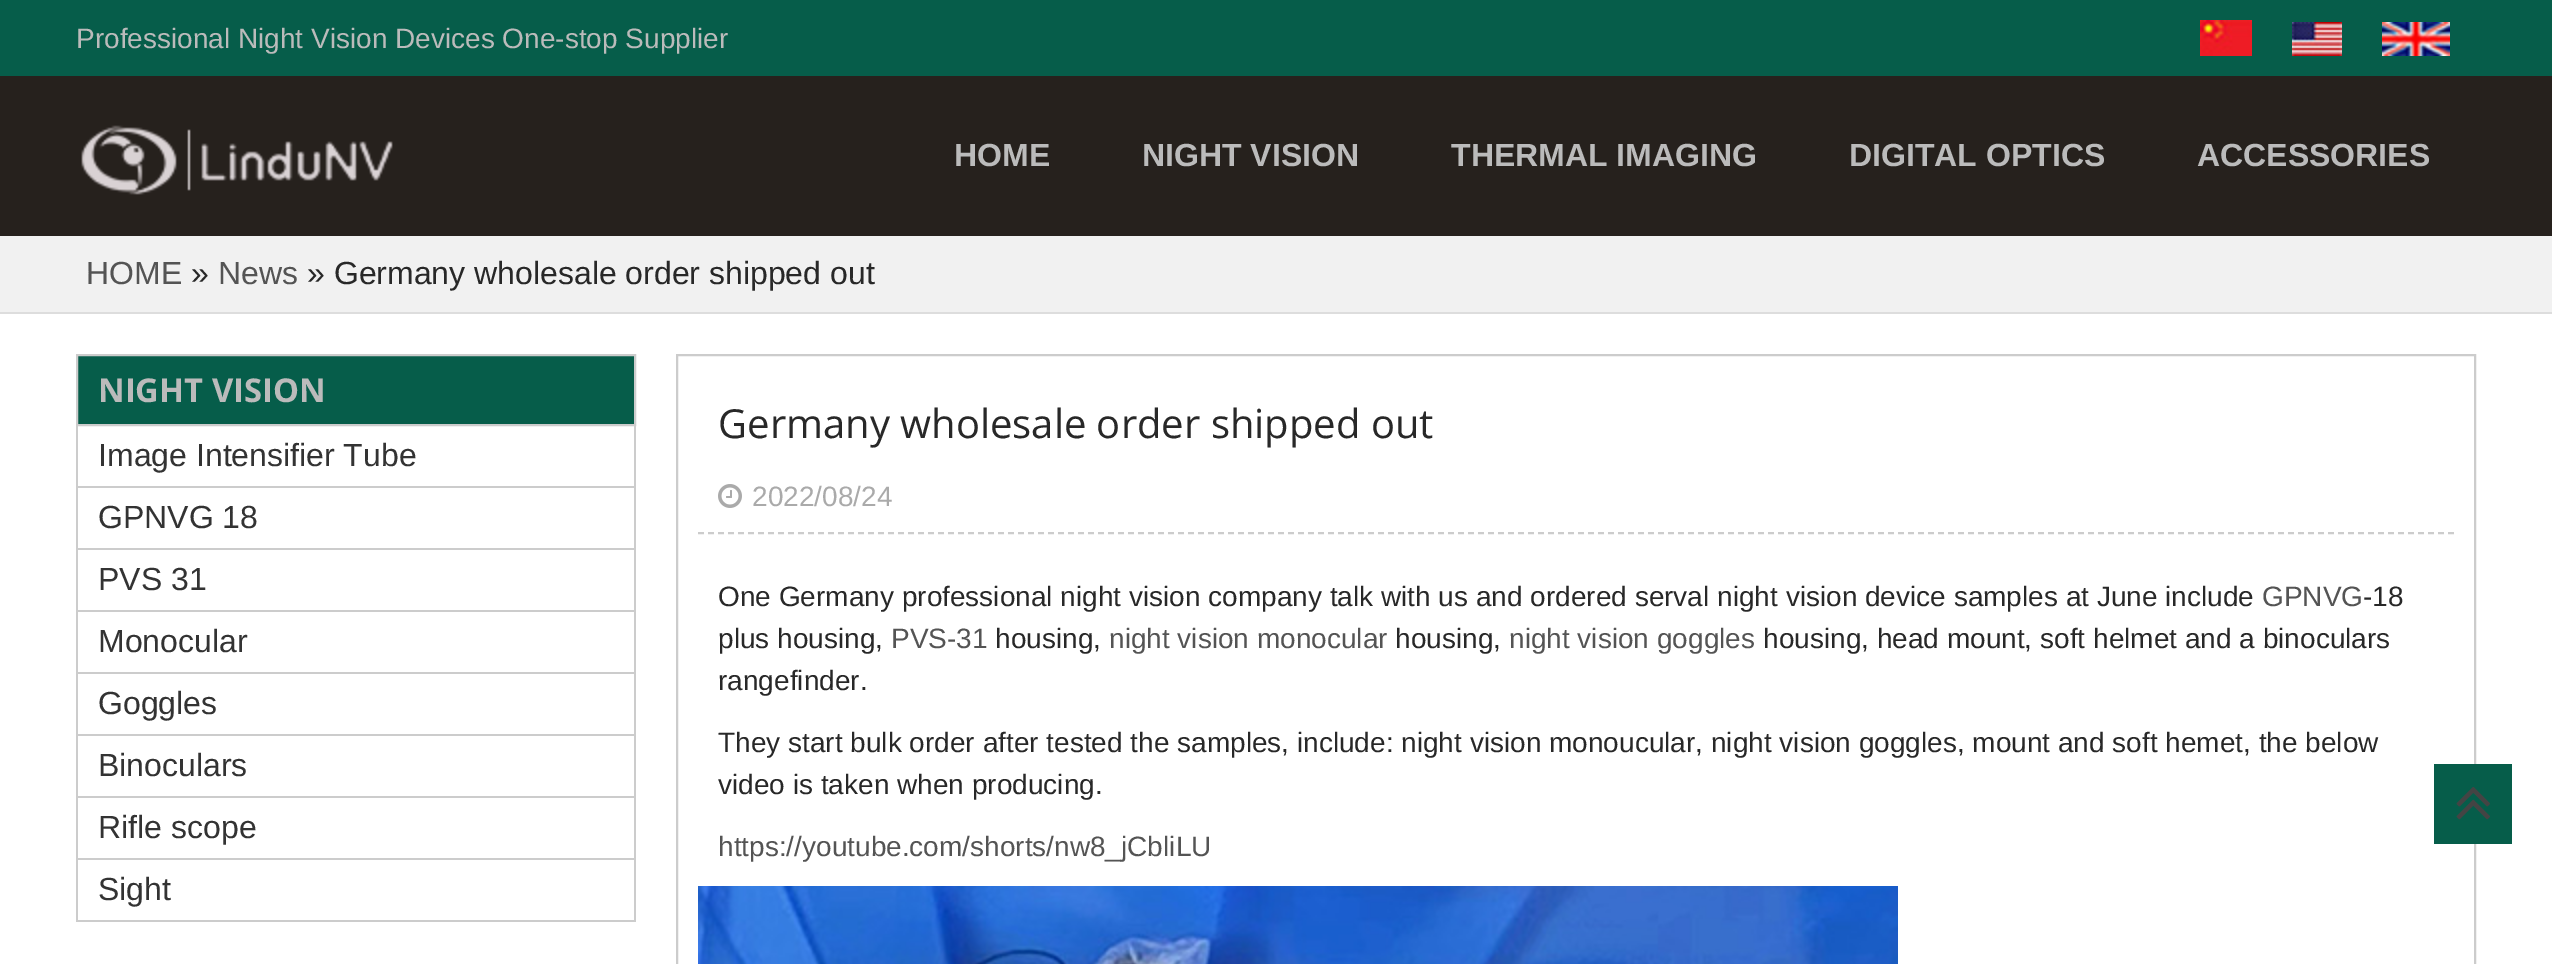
%!PS
<< /PageSize [2552 964] >> setpagedevice
/picture { 5 dict begin { /h /w /y /x /name } { exch def } forall
  gsave x y translate w h scale
  w h 8 [w 0 0 h 0 0] name (r) file false 3 colorimage grestore end } def
0 964 translate 1 -1 scale
4 setmiterlimit
1 setgray
0 0 2552 964 rectfill
0.024 0.365 0.29 setrgbcolor
0 0 2552 76 rectfill
/LiberationSans-Regular [28 0 0 -28 0 0] selectfont
0.733 setgray
76 48 moveto (Professional Night Vision Devices One-stop Supplier) show
(img1.rgb) 2200 20 52 36 picture
(img2.rgb) 2292 22 50 34 picture
(img3.rgb) 2382 22 68 34 picture
0.149 0.129 0.114 setrgbcolor
0 76 2552 160 rectfill
(img4.rgb) 81 125 312 70 picture
/LiberationSans-Bold [32 0 0 -32 0 0] selectfont
0.733 setgray
954 166 moveto (HOME) show
1142 166 moveto (NIGHT VISION) show
1451 166 moveto (THERMAL IMAGING) show
1849 166 moveto (DIGITAL OPTICS) show
2197 166 moveto (ACCESSORIES) show
0.945 setgray
0 236 2552 76 rectfill
0.867 setgray
0 312 2552 2 rectfill
/LiberationSans-Regular [32 0 0 -32 0 0] selectfont
0.329 setgray
86 284 moveto (HOME) show
0.157 setgray
191 284 moveto (») show
0.329 setgray
218 284 moveto (News) show
0.157 setgray
307 284 moveto (» Germany wholesale order shipped out) show
0.024 0.365 0.29 setrgbcolor
newpath 77 355 moveto 635 355 lineto 635 425 lineto 77 425 lineto closepath gsave fill grestore
0.8 setgray
2 setlinewidth
stroke
/OpenSans-Bold [32.75 0 0 -32.75 0 0] selectfont
0.733 setgray
98 402 moveto (NIGHT VISION) show
0.8 setgray
634 426 2 496 rectfill
76 486 560 2 rectfill
76 426 2 62 rectfill
/LiberationSans-Regular [32 0 0 -32 0 0] selectfont
0.2 setgray
98 466 moveto (Image Intensifier Tube) show
0.8 setgray
76 548 560 2 rectfill
76 488 2 62 rectfill
0.2 setgray
98 528 moveto (GPNVG 18) show
0.8 setgray
76 610 560 2 rectfill
76 550 2 62 rectfill
0.2 setgray
98 590 moveto (PVS 31) show
0.8 setgray
76 672 560 2 rectfill
76 612 2 62 rectfill
0.2 setgray
98 652 moveto (Monocular) show
0.8 setgray
76 734 560 2 rectfill
76 674 2 62 rectfill
0.2 setgray
98 714 moveto (Goggles) show
0.8 setgray
76 796 560 2 rectfill
76 736 2 62 rectfill
0.2 setgray
98 776 moveto (Binoculars) show
0.8 setgray
76 858 560 2 rectfill
76 798 2 62 rectfill
0.2 setgray
98 838 moveto (Rifle scope) show
0.8 setgray
76 920 560 2 rectfill
76 860 2 62 rectfill
0.2 setgray
98 900 moveto (Sight) show
0.8 setgray
677 355 1798 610 rectstroke
/OpenSans-Regular [40 0 0 -40 0 0] selectfont
0.157 setgray
718 438 moveto (Germany wholesale order shipped out) show
0.8 setgray
[6 4] 0 setdash
newpath 698 533 moveto 2454 533 lineto stroke
(img5.rgb) 718 484 24 24 picture
/LiberationSans-Regular [28 0 0 -28 0 0] selectfont
0.667 setgray
752 506 moveto (2022/08/24) show
0.157 setgray
718 606 moveto (One Germany professional night vision company talk with us and ordered serval night vision device samples at June include) show
0.329 setgray
2262 606 moveto (GPNVG) show
0.157 setgray
2363 606 moveto (-18) show
718 648 moveto (plus housing,) show
0.329 setgray
891 648 moveto (PVS-31) show
0.157 setgray
995 648 moveto (housing,) show
0.329 setgray
1109 648 moveto (night vision monocular) show
0.157 setgray
1395 648 moveto (housing,) show
0.329 setgray
1509 648 moveto (night vision goggles) show
0.157 setgray
1763 648 moveto (housing, head mount, soft helmet and a binoculars) show
718 690 moveto (rangefinder.) show
718 752 moveto (They start bulk order after tested the samples, include: night vision monoucular, night vision goggles, mount and soft hemet, the below) show
718 794 moveto (video is taken when producing.) show
0.329 setgray
718 856 moveto (https://youtube.com/shorts/nw8_jCbliLU) show
(img6.rgb) 698 886 1200 78 picture
0.024 0.365 0.29 setrgbcolor
2434 764 78 80 rectfill
(img7.rgb) 2456 787 34 33 picture
showpage
